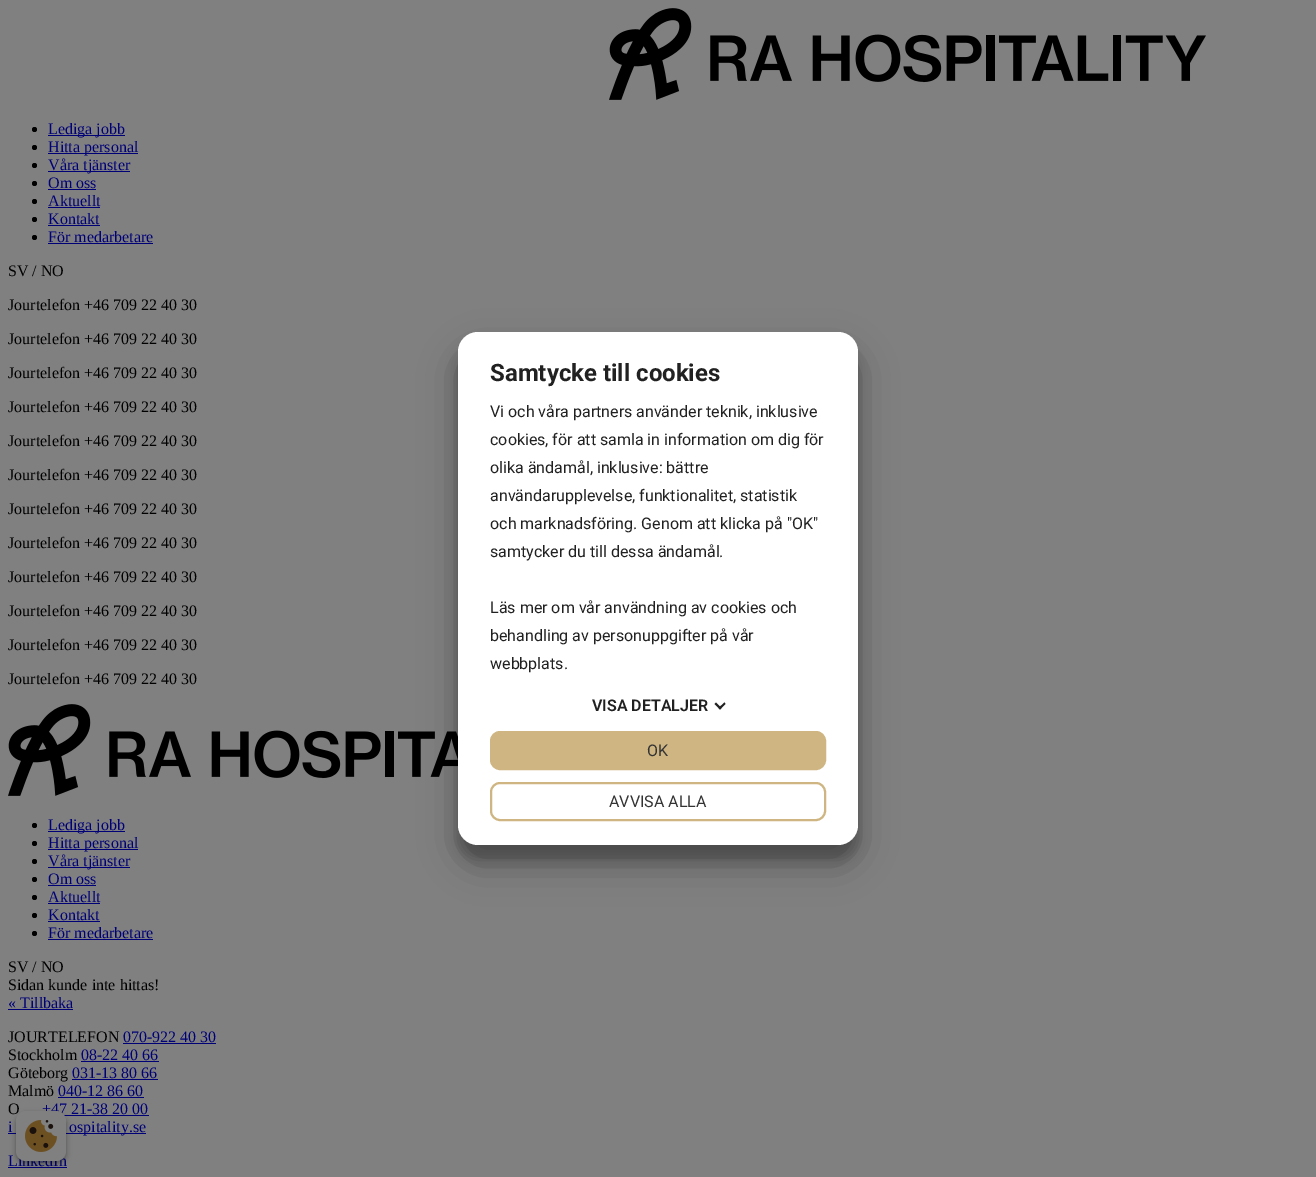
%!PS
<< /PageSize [1316 1177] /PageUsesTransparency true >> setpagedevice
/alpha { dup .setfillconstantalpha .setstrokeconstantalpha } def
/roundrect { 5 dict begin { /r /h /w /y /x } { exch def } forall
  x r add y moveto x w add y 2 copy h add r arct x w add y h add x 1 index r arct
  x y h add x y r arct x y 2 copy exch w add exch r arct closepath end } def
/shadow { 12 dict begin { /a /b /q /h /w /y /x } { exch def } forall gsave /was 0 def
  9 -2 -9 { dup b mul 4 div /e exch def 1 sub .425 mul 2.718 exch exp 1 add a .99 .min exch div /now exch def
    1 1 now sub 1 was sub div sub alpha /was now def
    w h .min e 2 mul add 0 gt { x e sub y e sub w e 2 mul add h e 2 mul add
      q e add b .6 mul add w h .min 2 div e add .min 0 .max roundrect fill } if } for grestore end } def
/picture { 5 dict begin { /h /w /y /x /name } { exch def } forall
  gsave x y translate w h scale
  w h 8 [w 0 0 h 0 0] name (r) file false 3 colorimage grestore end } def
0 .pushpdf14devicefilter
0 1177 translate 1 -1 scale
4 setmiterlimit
0.502 setgray
0 0 1316 1177 rectfill
(img1.rgb) 609 8 597 92 picture
0 setgray
newpath 34.5 129.5 2.5 0 360 arc closepath fill
0 0 0.467 setrgbcolor
48 135 77 1 rectfill
/LiberationSerif-Regular [16 0 0 -16 0 0] selectfont
48 134 moveto (Lediga jobb) show
0 setgray
newpath 34.5 147.5 2.5 0 360 arc closepath fill
0 0 0.467 setrgbcolor
48 153 90 1 rectfill
48 152 moveto (Hitta personal) show
0 setgray
newpath 34.5 165.5 2.5 0 360 arc closepath fill
0 0 0.467 setrgbcolor
48 171 82 1 rectfill
48 170 moveto (Våra tjänster) show
0 setgray
newpath 34.5 183.5 2.5 0 360 arc closepath fill
0 0 0.467 setrgbcolor
48 188 moveto (Om oss) show
48 189 48 1 rectfill
0 setgray
newpath 34.5 201.5 2.5 0 360 arc closepath fill
0 0 0.467 setrgbcolor
48 206 moveto (Aktuellt) show
48 207 52 1 rectfill
0 setgray
newpath 34.5 219.5 2.5 0 360 arc closepath fill
0 0 0.467 setrgbcolor
48 224 moveto (Kontakt) show
48 225 52 1 rectfill
0 setgray
newpath 34.5 237.5 2.5 0 360 arc closepath fill
0 0 0.467 setrgbcolor
48 242 moveto (För medarbetare) show
48 243 105 1 rectfill
0 setgray
8 276 moveto (SV / NO) show
8 310 moveto (Jourtelefon +46 709 22 40 30) show
8 344 moveto (Jourtelefon +46 709 22 40 30) show
8 378 moveto (Jourtelefon +46 709 22 40 30) show
8 412 moveto (Jourtelefon +46 709 22 40 30) show
8 446 moveto (Jourtelefon +46 709 22 40 30) show
8 480 moveto (Jourtelefon +46 709 22 40 30) show
8 514 moveto (Jourtelefon +46 709 22 40 30) show
8 548 moveto (Jourtelefon +46 709 22 40 30) show
8 582 moveto (Jourtelefon +46 709 22 40 30) show
8 616 moveto (Jourtelefon +46 709 22 40 30) show
8 650 moveto (Jourtelefon +46 709 22 40 30) show
8 684 moveto (Jourtelefon +46 709 22 40 30) show
(img2.rgb) 8 704 450 92 picture
newpath 34.5 825.5 2.5 0 360 arc closepath fill
0 0 0.467 setrgbcolor
48 831 77 1 rectfill
48 830 moveto (Lediga jobb) show
0 setgray
newpath 34.5 843.5 2.5 0 360 arc closepath fill
0 0 0.467 setrgbcolor
48 849 90 1 rectfill
48 848 moveto (Hitta personal) show
0 setgray
newpath 34.5 861.5 2.5 0 360 arc closepath fill
0 0 0.467 setrgbcolor
48 867 82 1 rectfill
48 866 moveto (Våra tjänster) show
0 setgray
newpath 34.5 879.5 2.5 0 360 arc closepath fill
0 0 0.467 setrgbcolor
48 884 moveto (Om oss) show
48 885 48 1 rectfill
0 setgray
newpath 34.5 897.5 2.5 0 360 arc closepath fill
0 0 0.467 setrgbcolor
48 902 moveto (Aktuellt) show
48 903 52 1 rectfill
0 setgray
newpath 34.5 915.5 2.5 0 360 arc closepath fill
0 0 0.467 setrgbcolor
48 920 moveto (Kontakt) show
48 921 52 1 rectfill
0 setgray
newpath 34.5 933.5 2.5 0 360 arc closepath fill
0 0 0.467 setrgbcolor
48 938 moveto (För medarbetare) show
48 939 105 1 rectfill
0 setgray
8 972 moveto (SV / NO) show
8 990 moveto (Sidan kunde inte hittas!) show
0 0 0.467 setrgbcolor
8 1008 moveto (« Tillbaka) show
8 1009 65 1 rectfill
0 setgray
8 1042 moveto (JOURTELEFON) show
0 0 0.467 setrgbcolor
123 1042 moveto (070-922 40 30) show
123 1043 93 1 rectfill
0 setgray
8 1060 moveto (Stockholm) show
0 0 0.467 setrgbcolor
81 1060 moveto (08-22 40 66) show
81 1061 78 1 rectfill
0 setgray
8 1078 moveto (Göteborg) show
0 0 0.467 setrgbcolor
72 1078 moveto (031-13 80 66) show
72 1079 86 1 rectfill
0 setgray
8 1096 moveto (Malmö) show
0 0 0.467 setrgbcolor
58 1096 moveto (040-12 86 60) show
58 1097 86 1 rectfill
0 setgray
8 1114 moveto (O) show
0 0 0.467 setrgbcolor
42 1114 moveto (+47 21-38 20 00) show
64 1115 85 1 rectfill
8 1132 moveto (i) show
8 1133 138 1 rectfill
69 1132 moveto (ospitality.se) show
8 1166 moveto (LinkedIn) show
8 1167 59 1 rectfill
0 setgray
458 347 400 513 20 6 0.22 shadow
458 351 400 513 20 19 0.3 shadow
1 setgray
458 332 400 513 20 roundrect fill
/Roboto-Bold [24 0 0 -24 0 0] selectfont
0.129 setgray
490 381 moveto (Samtycke till cookies) show
/Roboto-Regular [16 0 0 -16 0 0] selectfont
490 417 moveto (Vi och våra partners använder teknik, inklusive) show
490 445 moveto (cookies, för att samla in information om dig för) show
490 473 moveto (olika ändamål, inklusive: bättre) show
490 501 moveto (användarupplevelse, funktionalitet, statistik) show
490 529 moveto (och marknadsföring. Genom att klicka på "OK") show
490 557 moveto (samtycker du till dessa ändamål.) show
490 613 moveto (Läs mer om vår användning av cookies och) show
490 641 moveto (behandling av personuppgifter på vår) show
490 669 moveto (webbplats.) show
/Roboto-SemiBold [16 0 0 -16 0 0] selectfont
592 711 moveto (VISA DETALJER) show
newpath 724.5 702.5 moveto 725.5 704 lineto 720 709.5 lineto 718.5 708 lineto closepath fill
newpath 716 702.5 moveto 721.5 708 lineto 720 709.5 lineto 714.5 704 lineto closepath fill
0.808 0.71 0.51 setrgbcolor
491 732 334 37 9 roundrect gsave fill grestore
2 setlinewidth
stroke
/Roboto-Regular [16 0 0 -16 0 0] selectfont
0.2 setgray
647 756 moveto (OK) show
0.808 0.71 0.51 setrgbcolor
491 783 334 37 9 roundrect stroke
0.2 setgray
609 807 moveto (AVVISA ALLA) show
0 setgray
16 1114 50 50 10 3 0.23 shadow
16 1114 50 50 10 3 0.16 shadow
0.502 setgray
16 1111 50 50 10 roundrect fill
(img3.rgb) 25 1120 32 32 picture
.poppdf14devicefilter showpage
